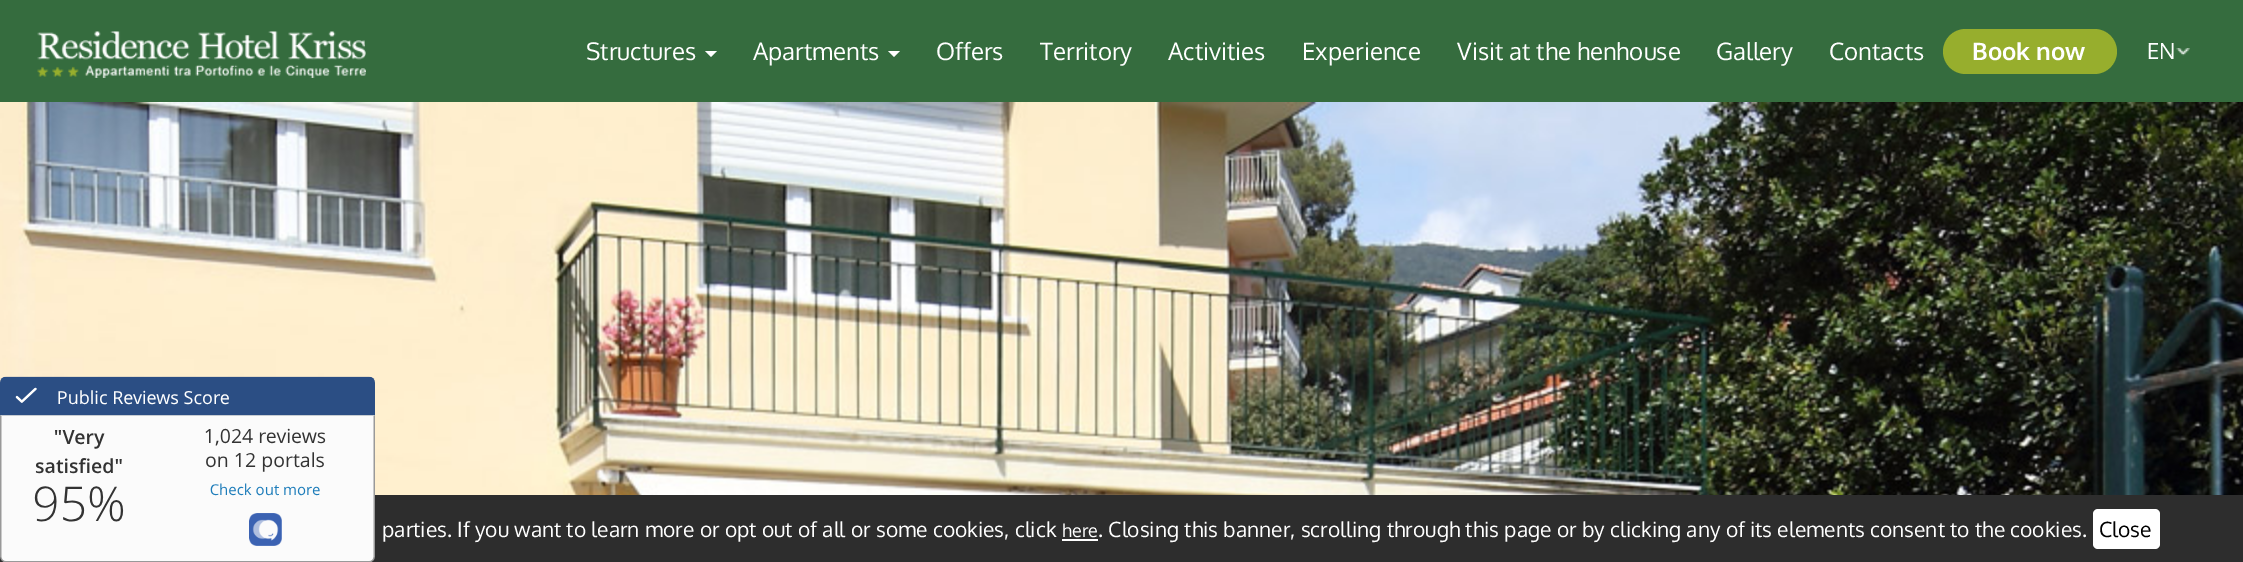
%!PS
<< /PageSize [2243 562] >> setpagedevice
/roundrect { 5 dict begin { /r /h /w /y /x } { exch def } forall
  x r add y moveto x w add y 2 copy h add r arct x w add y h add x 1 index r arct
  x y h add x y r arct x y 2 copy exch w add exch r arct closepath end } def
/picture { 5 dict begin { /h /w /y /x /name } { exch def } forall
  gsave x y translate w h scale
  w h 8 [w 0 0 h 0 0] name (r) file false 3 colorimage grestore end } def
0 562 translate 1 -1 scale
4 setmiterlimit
0.208 0.424 0.243 setrgbcolor
0 0 2243 562 rectfill
(img1.rgb) 37 31 329 47 picture
/Oxygen-Regular [24 0 0 -24 0 0] selectfont
1 setgray
586 60 moveto (Structures) show
newpath 705 51 moveto 717 51 lineto 711 57 lineto closepath fill
753 60 moveto (Apartments) show
newpath 888 51 moveto 900 51 lineto 894 57 lineto closepath fill
936 60 moveto (Offers) show
1040 60 moveto (Territory) show
1168 60 moveto (Activities) show
1302 60 moveto (Experience) show
1457 60 moveto (Visit at the henhouse) show
1716 60 moveto (Gallery) show
1829 60 moveto (Contacts) show
0.592 0.682 0.176 setrgbcolor
1943 29 174 45 22.5 roundrect fill
/Oxygen-Bold [24 0 0 -24 0 0] selectfont
1 setgray
1972 60 moveto (Book now) show
/Oxygen-Regular [22 0 0 -22 0 0] selectfont
2147 59 moveto (EN) show
(img2.rgb) 2176 48 14 8 picture
(img3.rgb) 0 102 2243 393 picture
0.176 setgray
0 495 2243 67 rectfill
(img4.rgb) 0 376 375 186 picture
/Oxygen-Regular [21 0 0 -21 0 0] selectfont
1 setgray
382 537 moveto (parties. If you want to learn more or opt out of all or some cookies, click) show
/Oxygen-Regular [18 0 0 -18 0 0] selectfont
1062 537 moveto (here) show
1062 539 36 2 rectfill
/Oxygen-Regular [21 0 0 -21 0 0] selectfont
1098 537 moveto (. Closing this banner, scrolling through this page or by clicking any of its elements consent to the cookies.) show
2093 509 67 40 5 roundrect fill
0 setgray
2099 537 moveto (Close) show
showpage
